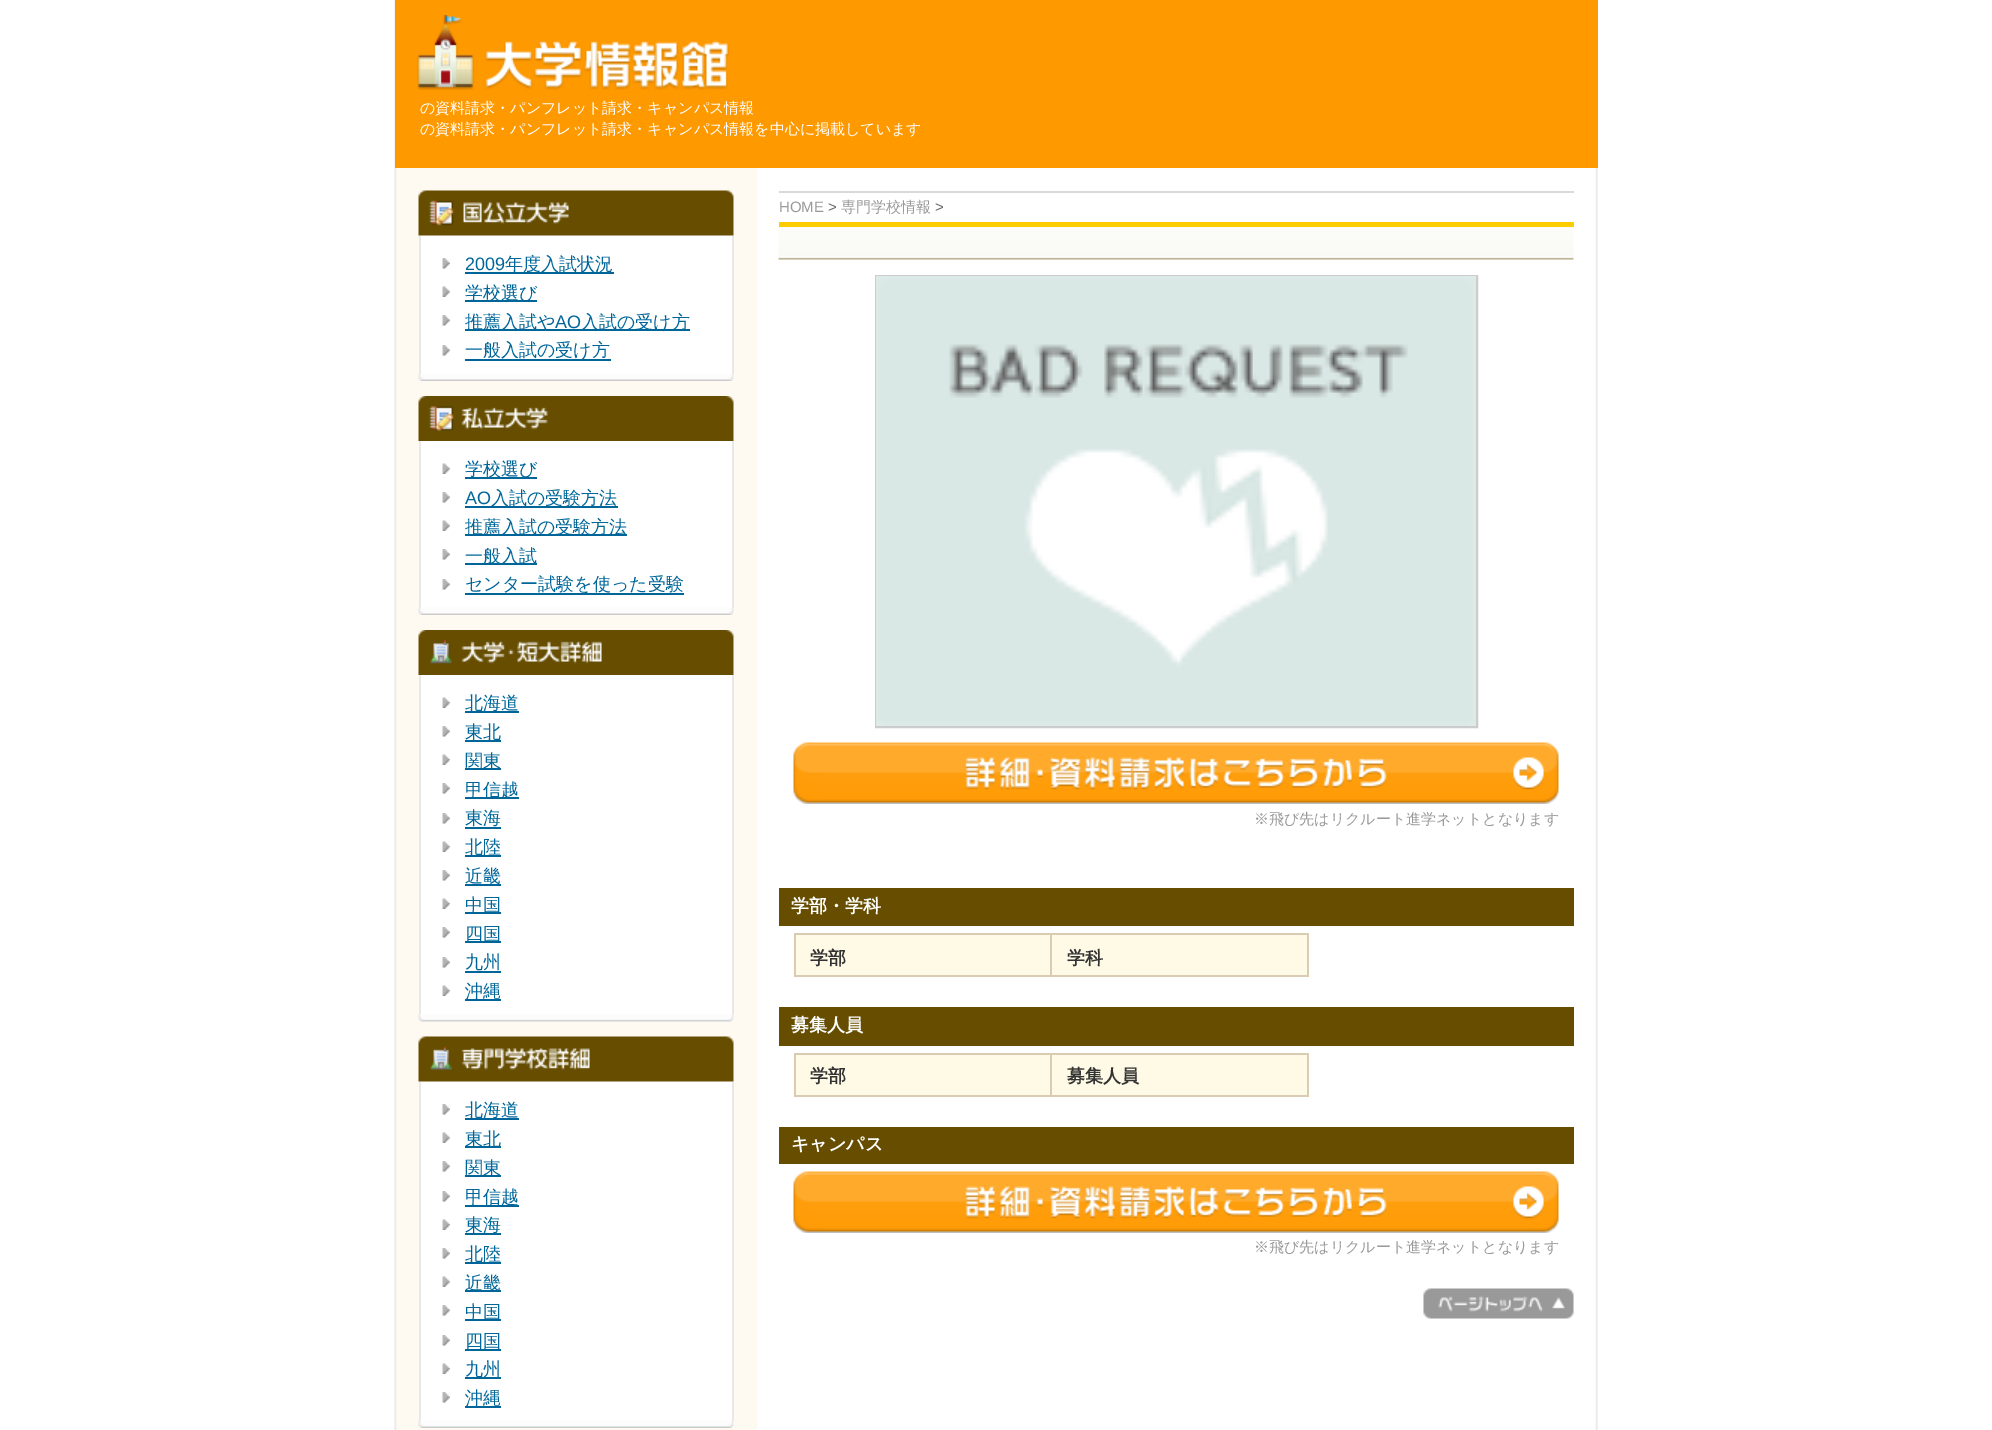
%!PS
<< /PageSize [1992 1430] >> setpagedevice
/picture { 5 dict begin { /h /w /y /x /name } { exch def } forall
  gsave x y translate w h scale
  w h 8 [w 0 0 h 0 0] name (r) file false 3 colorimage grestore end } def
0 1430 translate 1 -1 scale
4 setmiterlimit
1 setgray
0 0 1992 1430 rectfill
(img1.rgb) 394 0 1204 1430 picture
1 0.6 0 setrgbcolor
395 0 1203 168 rectfill
(img2.rgb) 417 15 312 75 picture
/WenQuanYiZenHei-Medium [15 0 0 -15 0 0] selectfont
1 setgray
420 113 moveto (の資料請求・パンフレット請求・キャンパス情報) show
420 134 moveto (の資料請求・パンフレット請求・キャンパス情報を中心に掲載しています) show
419 191 315 190 rectfill
(img3.rgb) 418 373 316 8 picture
(img4.rgb) 418 190 316 46 picture
0.91 setgray
732 236 2 138 rectfill
419 236 2 138 rectfill
(img5.rgb) 442 258 8 11 picture
/LiberationSans-Regular [18 0 0 -18 0 0] selectfont
0 0.4 0.6 setrgbcolor
465 270 moveto (2009) show
465 272 149 2 rectfill
/WenQuanYiZenHei-Medium [18 0 0 -18 0 0] selectfont
505 270 moveto (年度入試状況) show
(img6.rgb) 442 286 8 11 picture
465 300 72 2 rectfill
465 299 moveto (学校選び) show
(img5.rgb) 442 315 8 11 picture
465 329 225 2 rectfill
465 328 moveto (推薦入試や) show
/LiberationSans-Regular [18 0 0 -18 0 0] selectfont
555 328 moveto (AO) show
/WenQuanYiZenHei-Medium [18 0 0 -18 0 0] selectfont
581 328 moveto (入試の受け方) show
(img5.rgb) 442 345 8 11 picture
465 359 146 2 rectfill
465 356 moveto (一般入試の受け方) show
1 setgray
421 396 313 219 rectfill
(img3.rgb) 418 607 316 8 picture
(img7.rgb) 418 396 316 45 picture
0.91 setgray
732 441 2 167 rectfill
419 441 2 167 rectfill
(img6.rgb) 442 463 8 11 picture
0 0.4 0.6 setrgbcolor
465 477 72 2 rectfill
465 475 moveto (学校選び) show
(img5.rgb) 442 492 8 11 picture
/LiberationSans-Regular [18 0 0 -18 0 0] selectfont
465 504 moveto (AO) show
465 506 153 2 rectfill
/WenQuanYiZenHei-Medium [18 0 0 -18 0 0] selectfont
491 504 moveto (入試の受験方法) show
(img6.rgb) 442 520 8 11 picture
465 534 162 2 rectfill
465 533 moveto (推薦入試の受験方法) show
(img5.rgb) 442 549 8 11 picture
465 563 72 2 rectfill
465 562 moveto (一般入試) show
(img5.rgb) 442 579 8 11 picture
465 590 moveto (センター試験を使った受験) show
465 593 219 2 rectfill
1 setgray
419 630 315 392 rectfill
(img8.rgb) 418 1014 316 8 picture
(img9.rgb) 418 630 316 45 picture
0.91 setgray
732 675 2 339 rectfill
419 675 2 339 rectfill
(img6.rgb) 442 697 8 11 picture
0 0.4 0.6 setrgbcolor
465 711 54 2 rectfill
465 709 moveto (北海道) show
(img5.rgb) 442 726 8 11 picture
465 740 36 2 rectfill
465 738 moveto (東北) show
(img6.rgb) 442 754 8 11 picture
465 768 36 2 rectfill
465 767 moveto (関東) show
(img5.rgb) 442 783 8 11 picture
465 797 54 2 rectfill
465 796 moveto (甲信越) show
(img5.rgb) 442 813 8 11 picture
465 824 moveto (東海) show
465 827 36 2 rectfill
(img6.rgb) 442 841 8 11 picture
465 855 36 2 rectfill
465 853 moveto (北陸) show
(img5.rgb) 442 870 8 11 picture
465 884 36 2 rectfill
465 882 moveto (近畿) show
(img6.rgb) 442 898 8 11 picture
465 912 36 2 rectfill
465 911 moveto (中国) show
(img5.rgb) 442 927 8 11 picture
465 941 36 2 rectfill
465 940 moveto (四国) show
(img5.rgb) 442 957 8 11 picture
465 968 moveto (九州) show
465 971 36 2 rectfill
(img6.rgb) 442 985 8 11 picture
465 999 36 2 rectfill
465 997 moveto (沖縄) show
1 setgray
419 1037 315 391 rectfill
(img3.rgb) 418 1420 316 8 picture
(img10.rgb) 418 1036 316 46 picture
0.91 setgray
732 1082 2 339 rectfill
419 1082 2 339 rectfill
(img5.rgb) 442 1104 8 11 picture
0 0.4 0.6 setrgbcolor
465 1118 54 2 rectfill
465 1116 moveto (北海道) show
(img6.rgb) 442 1132 8 11 picture
465 1146 36 2 rectfill
465 1145 moveto (東北) show
(img5.rgb) 442 1161 8 11 picture
465 1175 36 2 rectfill
465 1174 moveto (関東) show
(img5.rgb) 442 1191 8 11 picture
465 1205 54 2 rectfill
465 1203 moveto (甲信越) show
(img6.rgb) 442 1219 8 11 picture
465 1233 36 2 rectfill
465 1231 moveto (東海) show
(img5.rgb) 442 1248 8 11 picture
465 1262 36 2 rectfill
465 1260 moveto (北陸) show
(img6.rgb) 442 1276 8 11 picture
465 1290 36 2 rectfill
465 1289 moveto (近畿) show
(img5.rgb) 442 1305 8 11 picture
465 1319 36 2 rectfill
465 1318 moveto (中国) show
(img5.rgb) 442 1335 8 11 picture
465 1349 36 2 rectfill
465 1347 moveto (四国) show
(img6.rgb) 442 1363 8 11 picture
465 1377 36 2 rectfill
465 1375 moveto (九州) show
(img5.rgb) 442 1392 8 11 picture
465 1406 36 2 rectfill
465 1404 moveto (沖縄) show
0.851 setgray
779 191 795 2 rectfill
/LiberationSans-Regular [15 0 0 -15 0 0] selectfont
0.6 setgray
779 212 moveto (HOME) show
0.4 setgray
828 212 moveto (>) show
/WenQuanYiZenHei-Medium [15 0 0 -15 0 0] selectfont
0.6 setgray
841 212 moveto (専門学校情報) show
/LiberationSans-Regular [15 0 0 -15 0 0] selectfont
0.4 setgray
935 212 moveto (>) show
(img11.rgb) 778 224 796 36 picture
1 0.8 0 setrgbcolor
779 222 795 5 rectfill
0.8 setgray
2 setlinewidth
876 276 601 451 rectstroke
(img12.rgb) 876 276 600 450 picture
(img13.rgb) 793 742 766 62 picture
/WenQuanYiZenHei-Medium [15 0 0 -15 0 0] selectfont
0.6 setgray
1254 824 moveto (※飛び先はリクルート進学ネットとなります) show
0.4 0.302 0 setrgbcolor
779 888 795 38 rectfill
/WenQuanYiZenHei-Bold [18 0 0 -18 0 0] selectfont
1 setgray
791 912 moveto (学部・学科) show
0.851 0.8 0.702 setrgbcolor
794 933 514 2 rectfill
1307 933 2 44 rectfill
1 0.98 0.898 setrgbcolor
796 935 254 40 rectfill
0.851 0.8 0.702 setrgbcolor
794 975 513 2 rectfill
794 935 2 42 rectfill
0.2 setgray
810 964 moveto (学部) show
1 0.98 0.898 setrgbcolor
1052 935 255 40 rectfill
0.851 0.8 0.702 setrgbcolor
1050 935 2 42 rectfill
0.2 setgray
1067 964 moveto (学科) show
0.4 0.302 0 setrgbcolor
779 1007 795 39 rectfill
1 setgray
791 1031 moveto (募集人員) show
0.851 0.8 0.702 setrgbcolor
794 1053 514 2 rectfill
1307 1053 2 44 rectfill
1 0.98 0.898 setrgbcolor
796 1055 254 40 rectfill
0.851 0.8 0.702 setrgbcolor
794 1095 513 2 rectfill
794 1055 2 42 rectfill
0.2 setgray
810 1082 moveto (学部) show
1 0.98 0.898 setrgbcolor
1052 1055 255 40 rectfill
0.851 0.8 0.702 setrgbcolor
1050 1055 2 42 rectfill
0.2 setgray
1067 1082 moveto (募集人員) show
0.4 0.302 0 setrgbcolor
779 1127 795 37 rectfill
1 setgray
791 1150 moveto (キャンパス) show
(img13.rgb) 793 1171 766 62 picture
/WenQuanYiZenHei-Medium [15 0 0 -15 0 0] selectfont
0.6 setgray
1254 1252 moveto (※飛び先はリクルート進学ネットとなります) show
(img14.rgb) 1423 1288 151 31 picture
showpage
